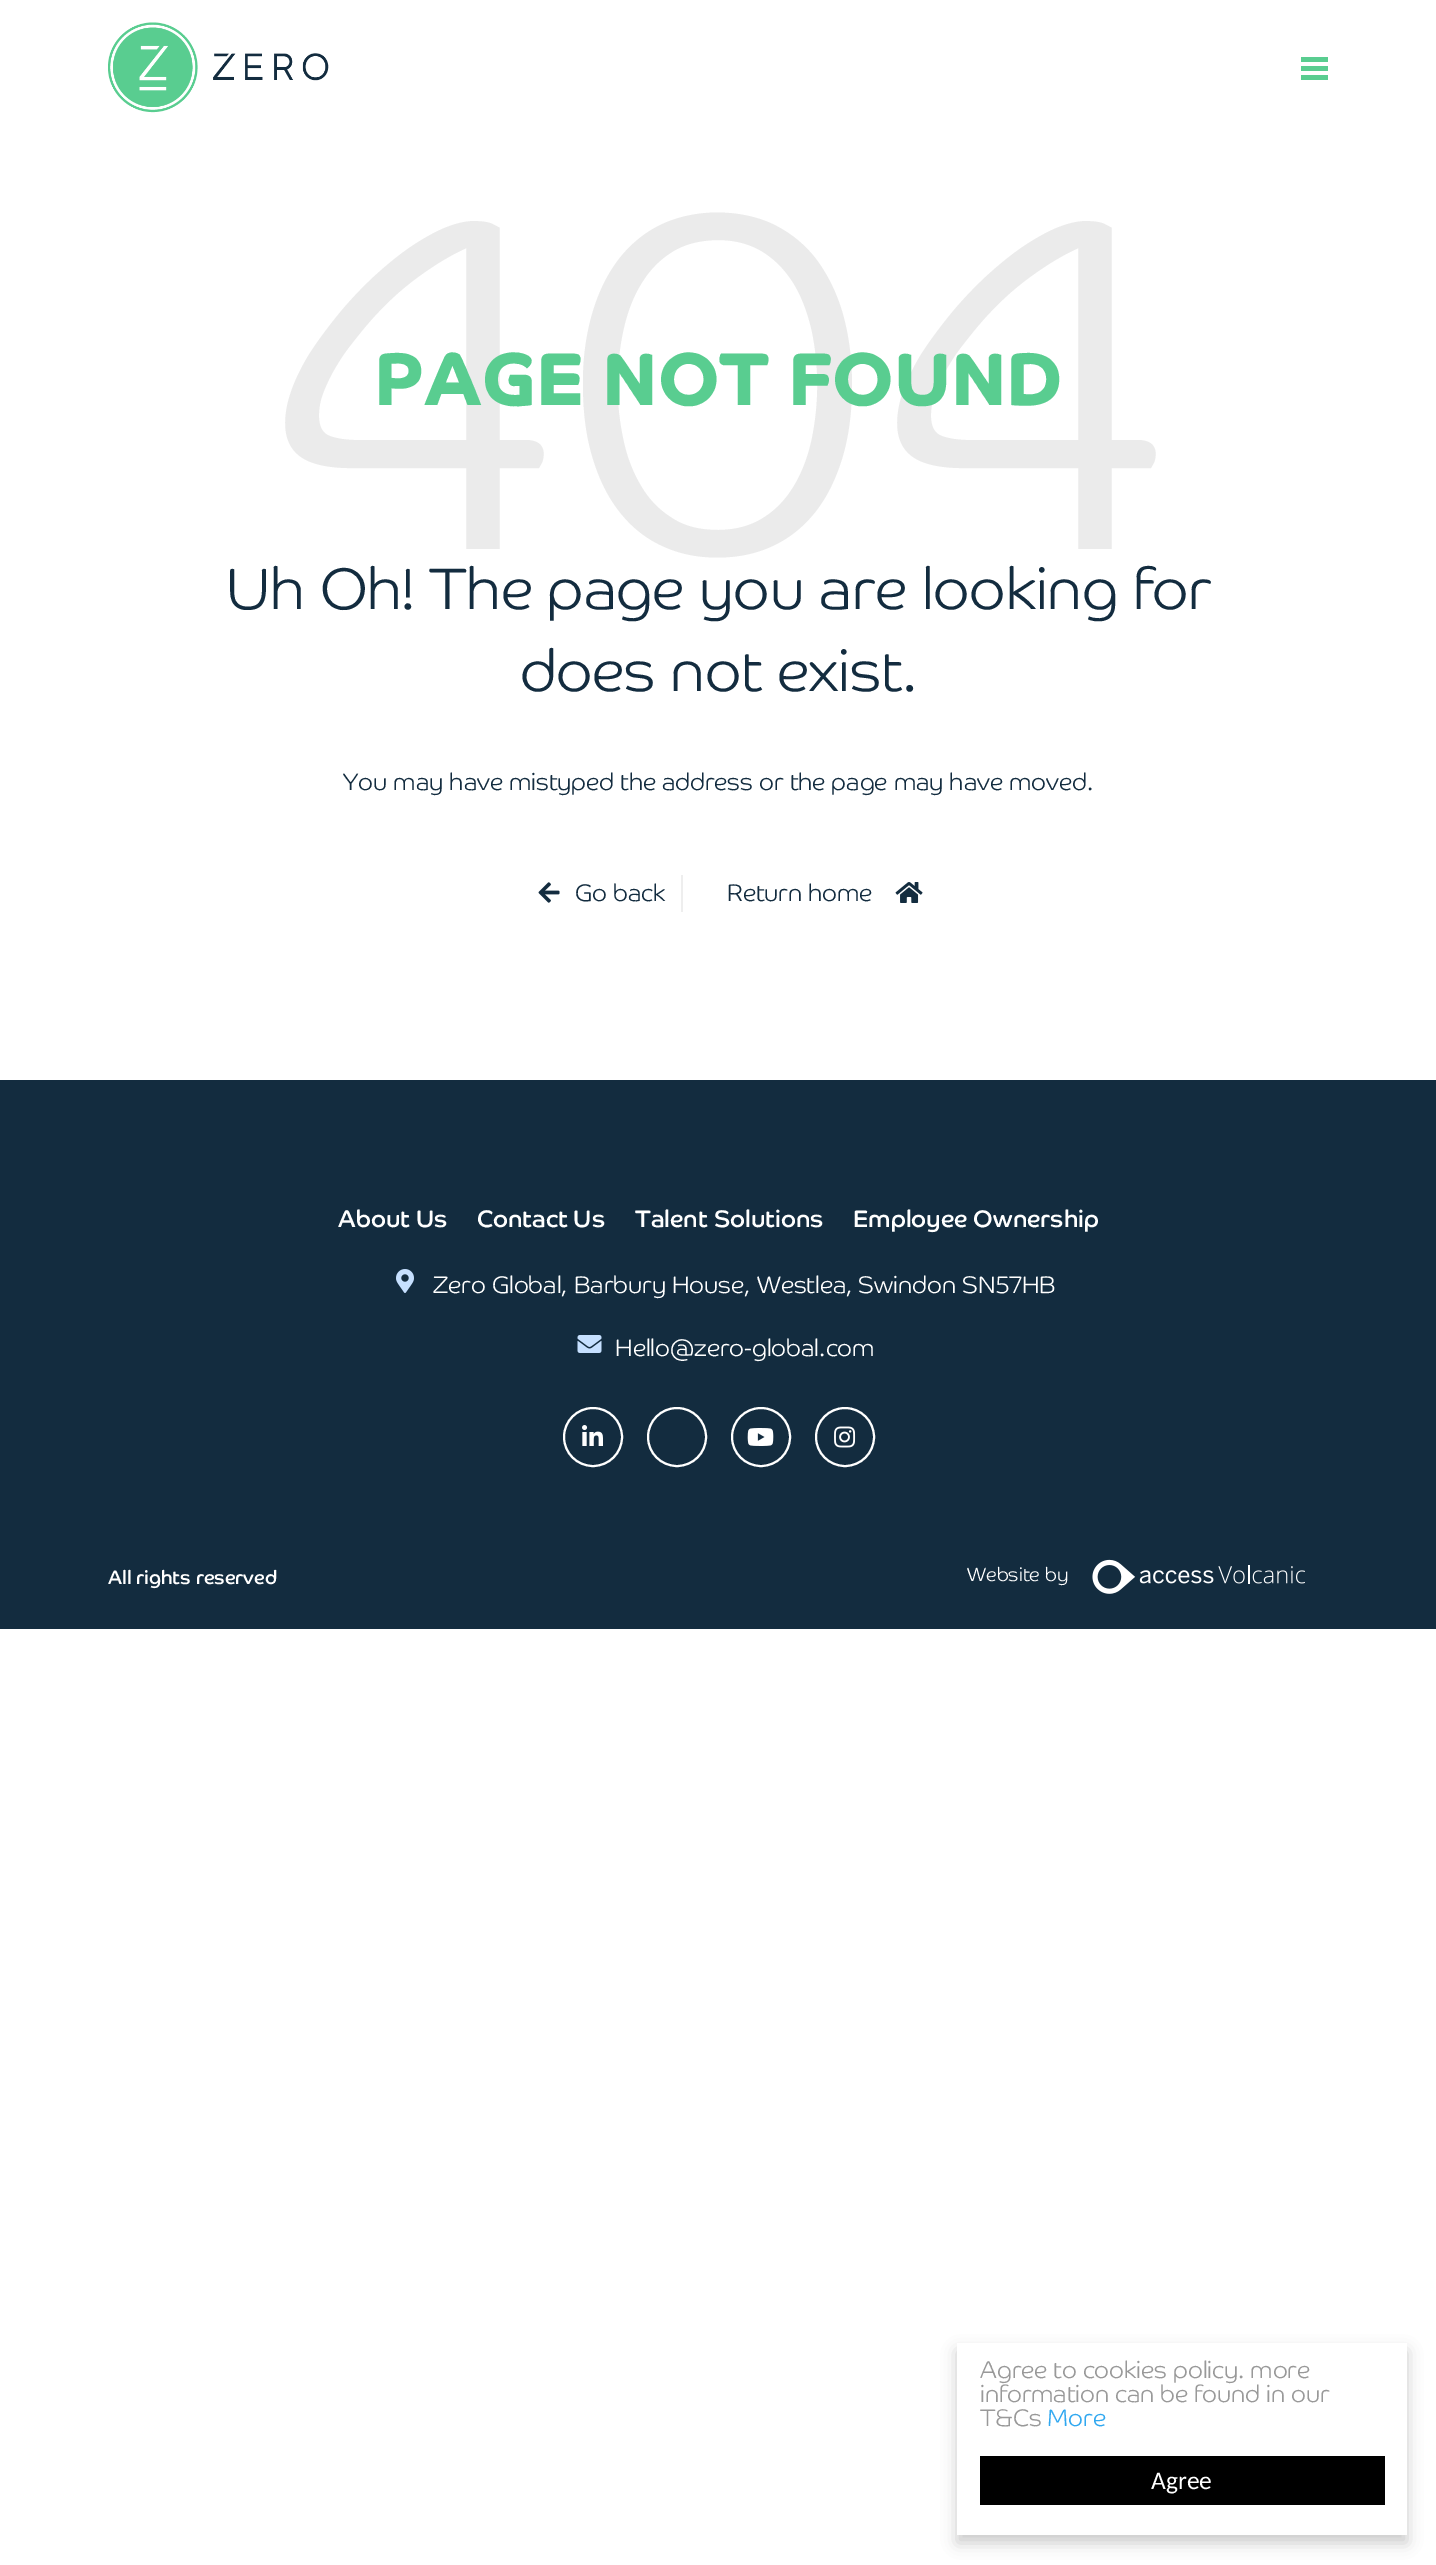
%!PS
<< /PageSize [1436 2565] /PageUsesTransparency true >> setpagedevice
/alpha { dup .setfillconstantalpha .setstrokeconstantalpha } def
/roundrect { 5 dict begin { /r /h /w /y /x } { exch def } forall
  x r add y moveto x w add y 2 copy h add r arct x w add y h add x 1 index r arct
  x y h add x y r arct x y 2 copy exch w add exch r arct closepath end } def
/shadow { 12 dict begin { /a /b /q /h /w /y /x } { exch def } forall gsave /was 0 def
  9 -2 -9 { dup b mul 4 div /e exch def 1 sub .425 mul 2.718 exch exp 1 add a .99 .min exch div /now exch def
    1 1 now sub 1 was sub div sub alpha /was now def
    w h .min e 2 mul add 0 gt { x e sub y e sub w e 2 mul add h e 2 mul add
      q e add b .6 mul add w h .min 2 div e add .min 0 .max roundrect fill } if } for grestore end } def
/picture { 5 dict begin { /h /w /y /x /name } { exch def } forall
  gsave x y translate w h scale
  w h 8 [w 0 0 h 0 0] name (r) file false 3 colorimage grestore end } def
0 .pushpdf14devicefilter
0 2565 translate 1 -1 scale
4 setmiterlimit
1 setgray
0 0 1436 2565 rectfill
(img1.rgb) 108 22 221 91 picture
0.349 0.804 0.565 setrgbcolor
1301 66 27 5 rectfill
1301 57 27 5 rectfill
1301 75 27 5 rectfill
/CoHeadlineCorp-Light [480 0 0 -480 0 0] selectfont
0.922 setgray
266 549 moveto (404) show
/CoHeadlineCorp-Bold [75 0 0 -75 0 0] selectfont
0.349 0.804 0.565 setrgbcolor
374 405 moveto (PAGE NOT FOUND) show
/CoHeadlineCorp-Light [58.6 0 0 -58.6 0 0] selectfont
0.075 0.173 0.247 setrgbcolor
226 609 moveto (Uh Oh! The page you are looking for) show
520 691 moveto (does not exist.) show
/CoHeadlineCorp-Light [24 0 0 -24 0 0] selectfont
343 790 moveto (You may have mistyped the address or the page may have moved.) show
0.933 setgray
681 875 2 37 rectfill
(img2.rgb) 538 882 22 21 picture
0.075 0.173 0.247 setrgbcolor
575 901 moveto (Go back) show
727 901 moveto (Return home) show
(img3.rgb) 895 882 28 21 picture
0 1080 1436 549 rectfill
/CoHeadlineCorp-Regular [24 0 0 -24 0 0] selectfont
1 setgray
338 1227 moveto (About Us) show
477 1227 moveto (Contact Us) show
635 1227 moveto (Talent Solutions) show
853 1227 moveto (Employee Ownership) show
(img4.rgb) 396 1269 18 24 picture
/CoHeadlineCorp-Light [24 0 0 -24 0 0] selectfont
433 1293 moveto (Zero Global, Barbury House, Westlea, Swindon SN5) show
1009 1293 moveto (7HB) show
(img5.rgb) 577 1335 25 18 picture
615 1356 moveto (Hello@zero-global.com) show
2 setlinewidth
newpath 593 1437 29 0 360 arc closepath stroke
(img6.rgb) 582 1425 21 21 picture
newpath 677 1437 29 0 360 arc closepath stroke
newpath 761 1437 29 0 360 arc closepath stroke
(img7.rgb) 747 1428 27 18 picture
newpath 845 1437 29 0 360 arc closepath stroke
(img8.rgb) 834 1426 22 22 picture
/CoHeadlineCorp-Regular [19.25 0 0 -19.25 0 0] selectfont
108 1584 moveto (All rights reserved) show
/CoHeadlineCorp-Light [19.25 0 0 -19.25 0 0] selectfont
967 1581 moveto (Website by) show
(img9.rgb) 1092 1559 213 35 picture
gsave
newpath 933 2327 moveto 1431 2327 lineto 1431 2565 lineto 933 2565 lineto closepath 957 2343 moveto 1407 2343 lineto 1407 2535 lineto 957 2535 lineto closepath eoclip newpath
0 setgray
957 2351 450 192 0 7.5 0.2 shadow
grestore
/CoHeadlineCorp-Light [24 0 0 -24 0 0] selectfont
0.6 setgray
980 2378 moveto (Agree to cookies policy. more) show
980 2402 moveto (information can be found in our) show
980 2426 moveto (T&Cs) show
0.192 0.659 0.941 setrgbcolor
1047 2426 moveto (More) show
0 setgray
980 2456 405 49 rectfill
/Carlito-Regular [25.5 0 0 -25.5 0 0] selectfont
1 setgray
1151 2489 moveto (Agree) show
.poppdf14devicefilter showpage
